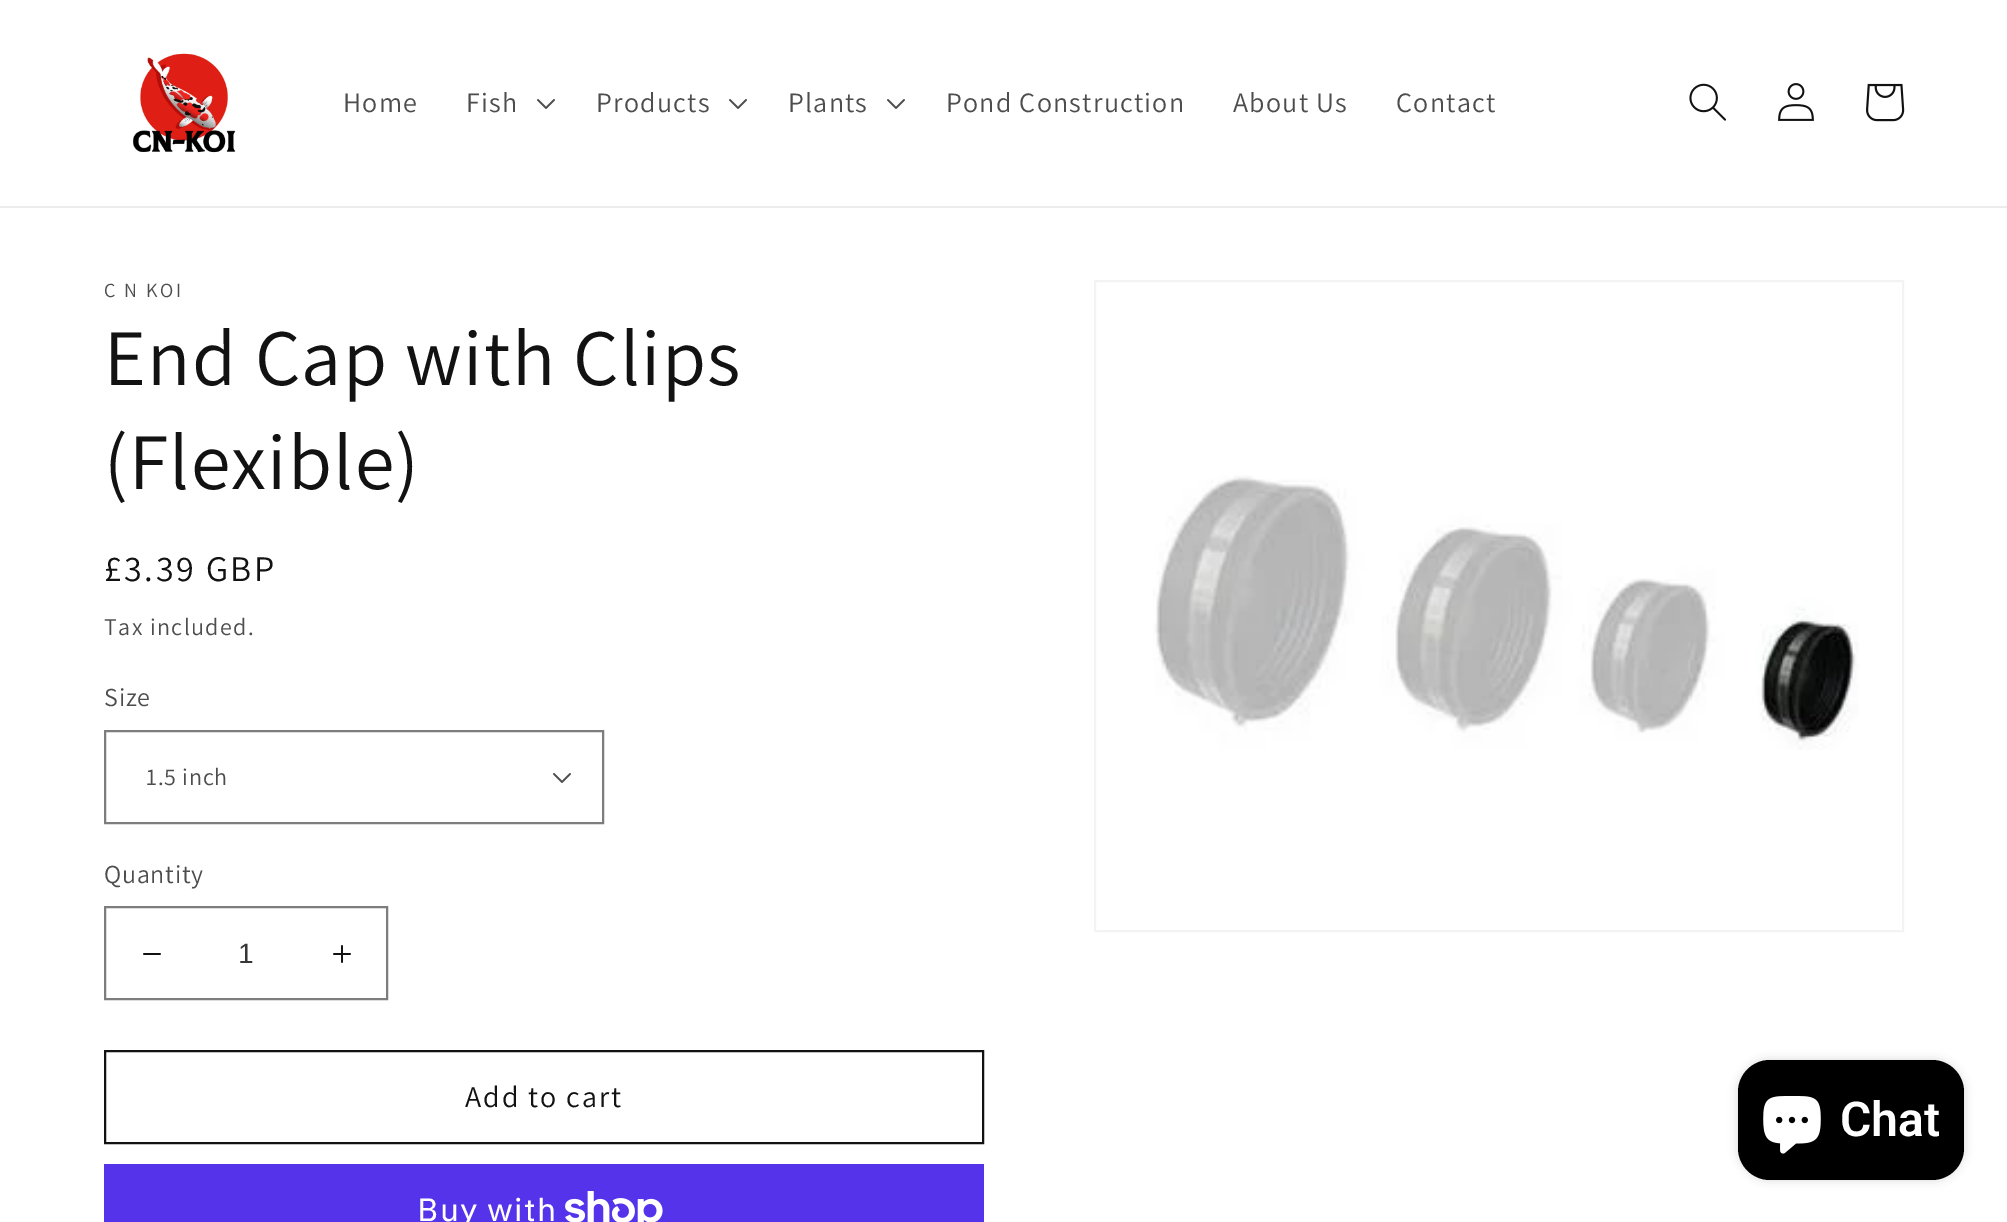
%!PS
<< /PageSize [2007 1222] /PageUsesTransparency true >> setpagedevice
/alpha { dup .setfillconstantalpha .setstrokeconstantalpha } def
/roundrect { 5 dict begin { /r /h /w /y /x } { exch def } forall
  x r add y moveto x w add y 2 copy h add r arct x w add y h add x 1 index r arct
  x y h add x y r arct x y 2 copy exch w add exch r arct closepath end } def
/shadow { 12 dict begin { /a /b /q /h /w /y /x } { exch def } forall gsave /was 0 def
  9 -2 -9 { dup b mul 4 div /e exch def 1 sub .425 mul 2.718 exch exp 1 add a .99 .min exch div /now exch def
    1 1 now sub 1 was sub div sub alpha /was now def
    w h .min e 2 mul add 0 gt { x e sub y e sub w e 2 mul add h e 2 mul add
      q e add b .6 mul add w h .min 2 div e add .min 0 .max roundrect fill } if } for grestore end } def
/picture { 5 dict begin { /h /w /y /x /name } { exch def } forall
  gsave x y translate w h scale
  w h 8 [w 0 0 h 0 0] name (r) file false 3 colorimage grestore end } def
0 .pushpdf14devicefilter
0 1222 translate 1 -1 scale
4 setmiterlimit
1 setgray
0 0 2007 1222 rectfill
0.925 setgray
0 206 2007 2 rectfill
(img1.rgb) 133 53 103 100 picture
/Assistant-Regular [28 0 0 -28 0 0] selectfont
0.302 setgray
343 112 moveto 1.25 0 (Home) ashow
466 112 moveto 1.25 0 (Fish) ashow
(img2.rgb) 537 99 18 10 picture
596 112 moveto 1.25 0 (Products) ashow
(img2.rgb) 729 99 18 10 picture
788 112 moveto 1.25 0 (Plants) ashow
(img2.rgb) 887 99 18 10 picture
946 112 moveto 1.25 0 (Pond Construction) ashow
1233 112 moveto 1.25 0 (About Us) ashow
1396 112 moveto 1.25 0 (Contact) ashow
(img3.rgb) 1689 83 37 38 picture
(img4.rgb) 1778 83 36 38 picture
(img5.rgb) 1866 83 39 39 picture
/Assistant-Regular [20 0 0 -20 0 0] selectfont
104 297 moveto 2.5 0 (C N KOI) ashow
/Assistant-Regular [80 0 0 -80 0 0] selectfont
0.071 setgray
104 385 moveto 1.25 0 (End Cap with Clips) ashow
104 489 moveto 1.25 0 (\(Flexible\)) ashow
/Assistant-Regular [36 0 0 -36 0 0] selectfont
104 581 moveto 2.5 0 (£3.39 GBP) ashow
/Assistant-Regular [24 0 0 -24 0 0] selectfont
0.302 setgray
104 635 moveto 1.4 0 (Tax included.) ashow
/Assistant-Regular [26 0 0 -26 0 0] selectfont
104 706 moveto 0.75 0 (Size) ashow
(img2.rgb) 553 773 18 10 picture
0.49 setgray
2 setlinewidth
105 731 498 92 rectstroke
/Assistant-Regular [24 0 0 -24 0 0] selectfont
0.302 setgray
146 785 moveto 0.75 0 (1.5 inch) ashow
/Assistant-Regular [26 0 0 -26 0 0] selectfont
104 883 moveto 0.75 0 (Quantity) ashow
(img6.rgb) 143 953 18 2 picture
(img7.rgb) 333 945 18 18 picture
0.49 setgray
105 907 282 92 rectstroke
/LiberationSans-Regular [28 0 0 -28 0 0] selectfont
0.212 setgray
238 963 moveto (1) show
0.071 setgray
105 1051 878 92 rectstroke
/Assistant-Regular [30 0 0 -30 0 0] selectfont
465 1107 moveto 2 0 (Add to cart) ashow
0.329 0.2 0.922 setrgbcolor
104 1164 880 58 rectfill
/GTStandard-Regular [32 0 0 -32 0 0] selectfont
1 setgray
417 1221 moveto 1.25 0 (Buy with) ashow
(img8.rgb) 565 1191 98 31 picture
0.953 setgray
1095 281 808 650 rectstroke
(img9.rgb) 1153 475 706 275 picture
0 setgray
1738 1060 226 120 32 5 0.15 shadow
1738 1060 226 120 32 roundrect fill
(img10.rgb) 1763 1096 58 58 picture
/Roboto-SemiBold [48 0 0 -48 0 0] selectfont
1 setgray
1840 1136 moveto (Chat) show
.poppdf14devicefilter showpage
